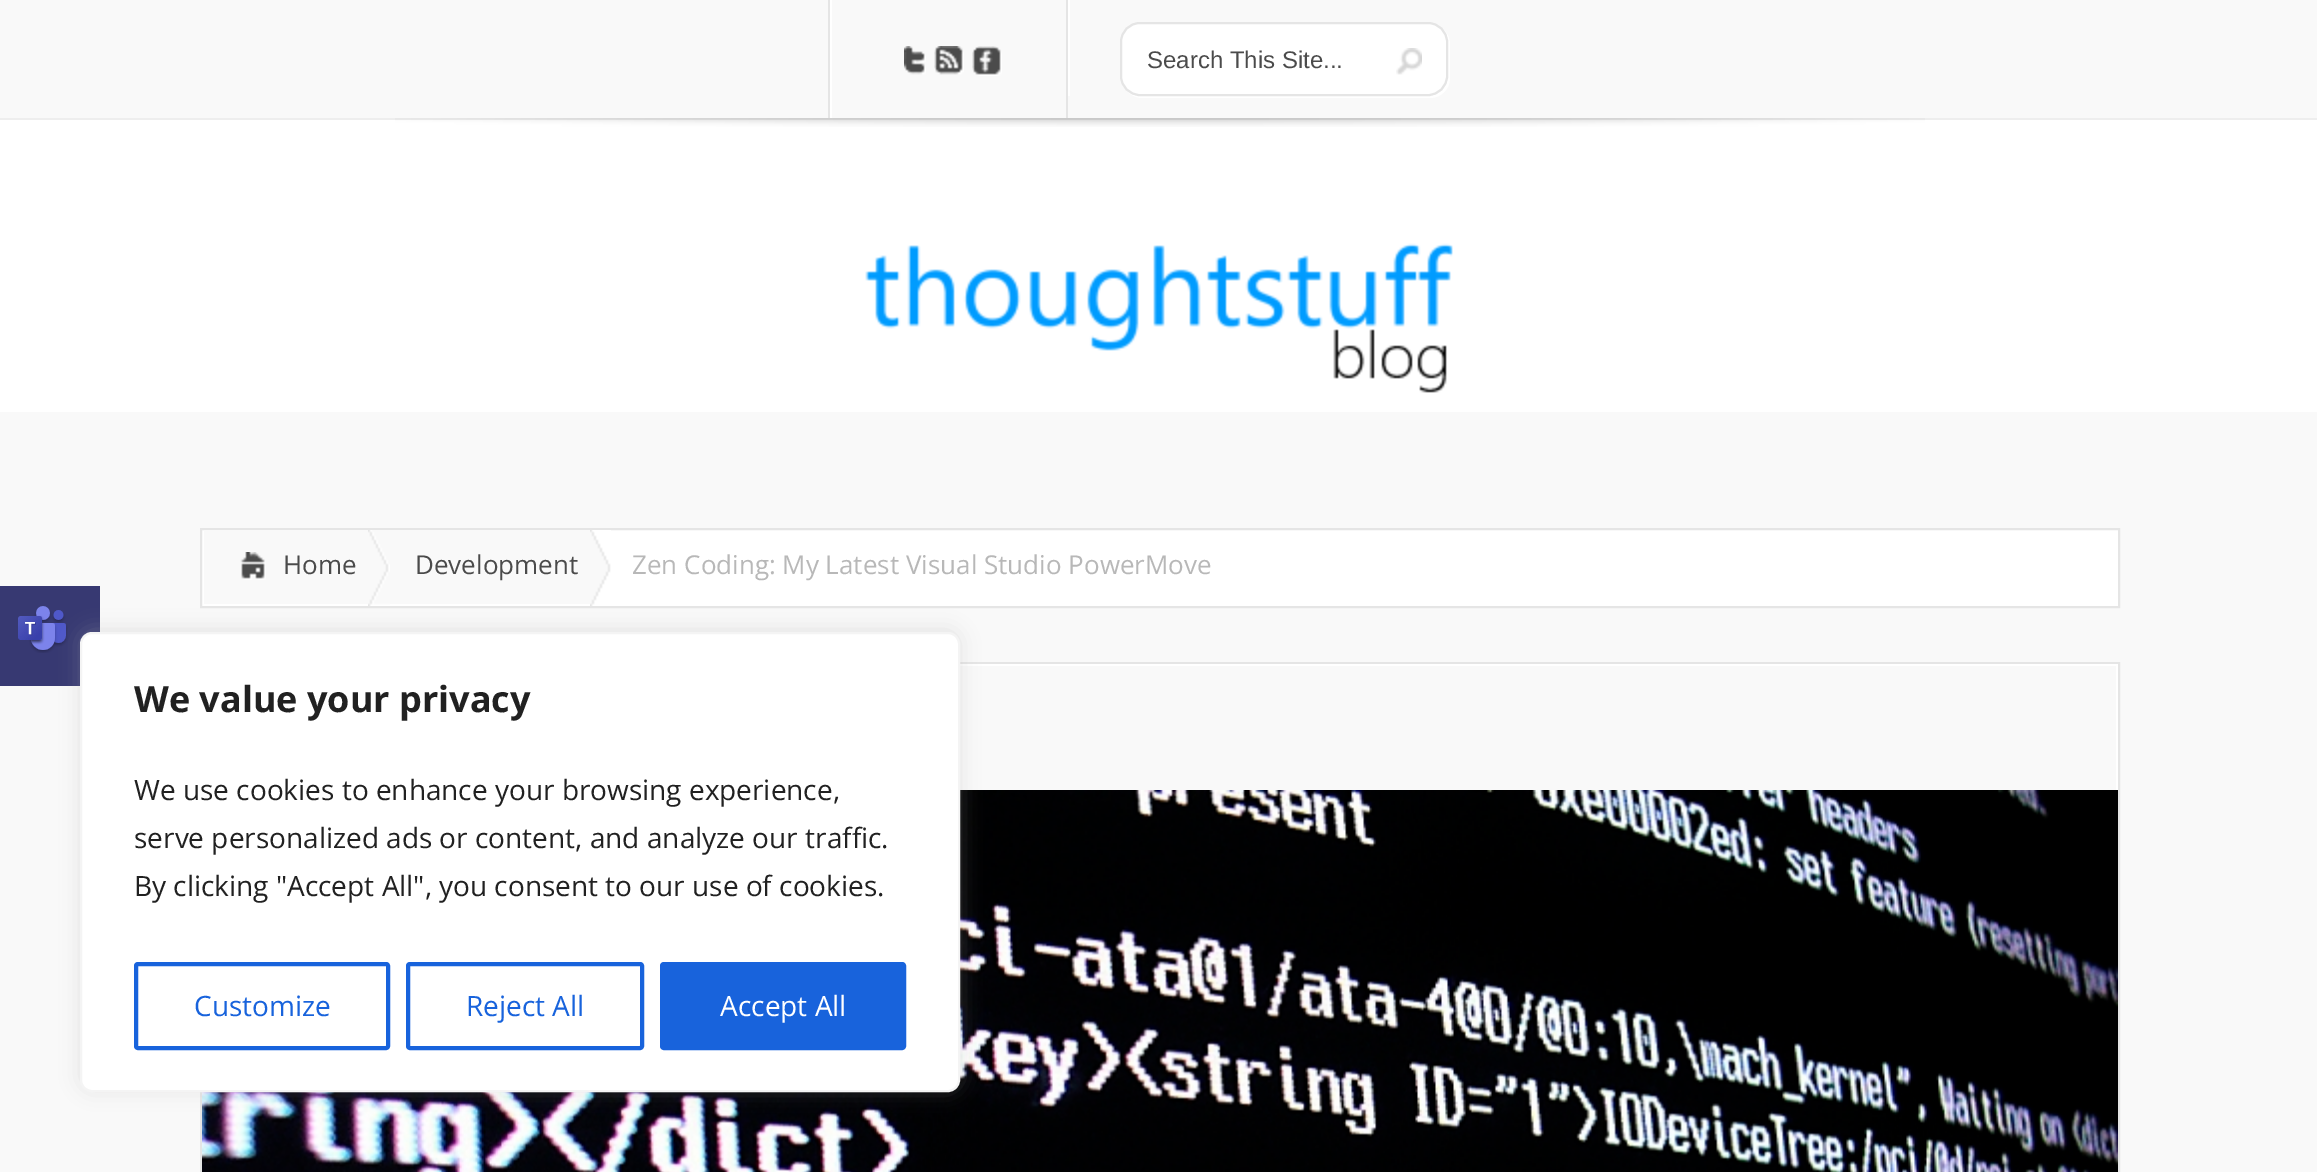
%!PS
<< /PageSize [2317 1172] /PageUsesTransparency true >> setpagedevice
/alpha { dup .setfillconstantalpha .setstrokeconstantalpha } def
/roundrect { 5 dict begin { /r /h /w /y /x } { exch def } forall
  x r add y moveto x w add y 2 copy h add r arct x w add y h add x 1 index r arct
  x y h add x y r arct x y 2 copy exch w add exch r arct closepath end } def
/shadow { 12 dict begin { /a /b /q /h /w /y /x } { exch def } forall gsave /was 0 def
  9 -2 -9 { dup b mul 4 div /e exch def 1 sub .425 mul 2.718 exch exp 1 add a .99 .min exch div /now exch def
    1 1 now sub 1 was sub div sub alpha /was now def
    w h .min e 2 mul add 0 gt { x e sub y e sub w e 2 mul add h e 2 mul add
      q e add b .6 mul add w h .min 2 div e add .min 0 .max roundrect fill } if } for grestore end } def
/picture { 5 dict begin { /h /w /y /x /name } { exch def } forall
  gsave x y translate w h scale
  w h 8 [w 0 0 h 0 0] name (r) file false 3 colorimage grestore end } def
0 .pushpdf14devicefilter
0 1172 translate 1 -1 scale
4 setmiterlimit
1 setgray
0 0 2317 1172 rectfill
0.976 setgray
0 0 2317 118 rectfill
0.933 setgray
0 118 2317 2 rectfill
0.898 setgray
828 0 2 118 rectfill
1066 0 2 118 rectfill
1 setgray
830 0 2 118 rectfill
(img1.rgb) 904 46 22 29 picture
(img2.rgb) 934 46 30 29 picture
(img3.rgb) 972 46 30 30 picture
1068 0 2 96 rectfill
newpath 1127 91 moveto 1131 95 1136 98 1142 98 curveto 1430 98 lineto 1441 98 1450 89 1450 78 curveto 1450 44 lineto 1450 38 1447 33 1443 29 curveto 1446 32 1448 37 1448 42 curveto 1448 76 lineto 1448 87 1439 96 1428 96 curveto 1140 96 lineto 1135 96 1130 94 1127 91 curveto closepath fill
1121 23 326 72 19 roundrect gsave fill grestore
0.898 setgray
2 setlinewidth
stroke
/LiberationSans-Regular [24 0 0 -24 0 0] selectfont
0.294 setgray
1147 68 moveto (Search This Site...) show
(img4.rgb) 1396 48 26 27 picture
(img5.rgb) 395 118 1530 9 picture
(img6.rgb) 865 243 588 150 picture
0.976 setgray
0 412 2317 760 rectfill
1 setgray
newpath 201 529 moveto 2119 529 lineto 2119 607 lineto 201 607 lineto closepath gsave fill grestore
0.898 setgray
stroke
0.976 setgray
204 530 164 74 rectfill
(img7.rgb) 240 552 26 28 picture
/OpenSans-Regular [26 0 0 -26 0 0] selectfont
0.294 setgray
283 574 moveto (Home) show
(img8.rgb) 368 530 22 76 picture
0.976 setgray
390 530 200 74 rectfill
0.294 setgray
415 574 moveto (Development) show
(img9.rgb) 590 530 21 76 picture
0.722 setgray
632 574 moveto (Zen Coding: My Latest Visual Studio PowerMove) show
0.898 setgray
201 663 1918 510 rectstroke
1 setgray
960 664 1158 2 rectfill
2116 664 2 126 rectfill
(img10.rgb) 202 790 1916 382 picture
0.216 0.224 0.447 setrgbcolor
0 586 100 100 rectfill
(img11.rgb) 18 606 50 47 picture
0.675 0.671 0.671 setrgbcolor
80 630 880 460 12 10 0.3 shadow
1 setgray
81 633 878 458 11 roundrect gsave fill grestore
0.957 setgray
stroke
/OpenSans-Bold [36 0 0 -36 0 0] selectfont
0.129 setgray
134 712 moveto (We value your privacy) show
/OpenSans-Regular [28 0 0 -28 0 0] selectfont
134 800 moveto (We use cookies to enhance your browsing experience,) show
134 848 moveto (serve personalized ads or content, and analyze our traffic.) show
134 896 moveto (By clicking "Accept All", you consent to our use of cookies.) show
0.094 0.388 0.863 setrgbcolor
4 setlinewidth
136 964 252 84 2 roundrect stroke
194 1016 moveto (Customize) show
408 964 234 84 2 roundrect stroke
466 1016 moveto (Reject All) show
662 964 242 84 2 roundrect gsave fill grestore
stroke
1 setgray
720 1016 moveto (Accept All) show
.poppdf14devicefilter showpage
